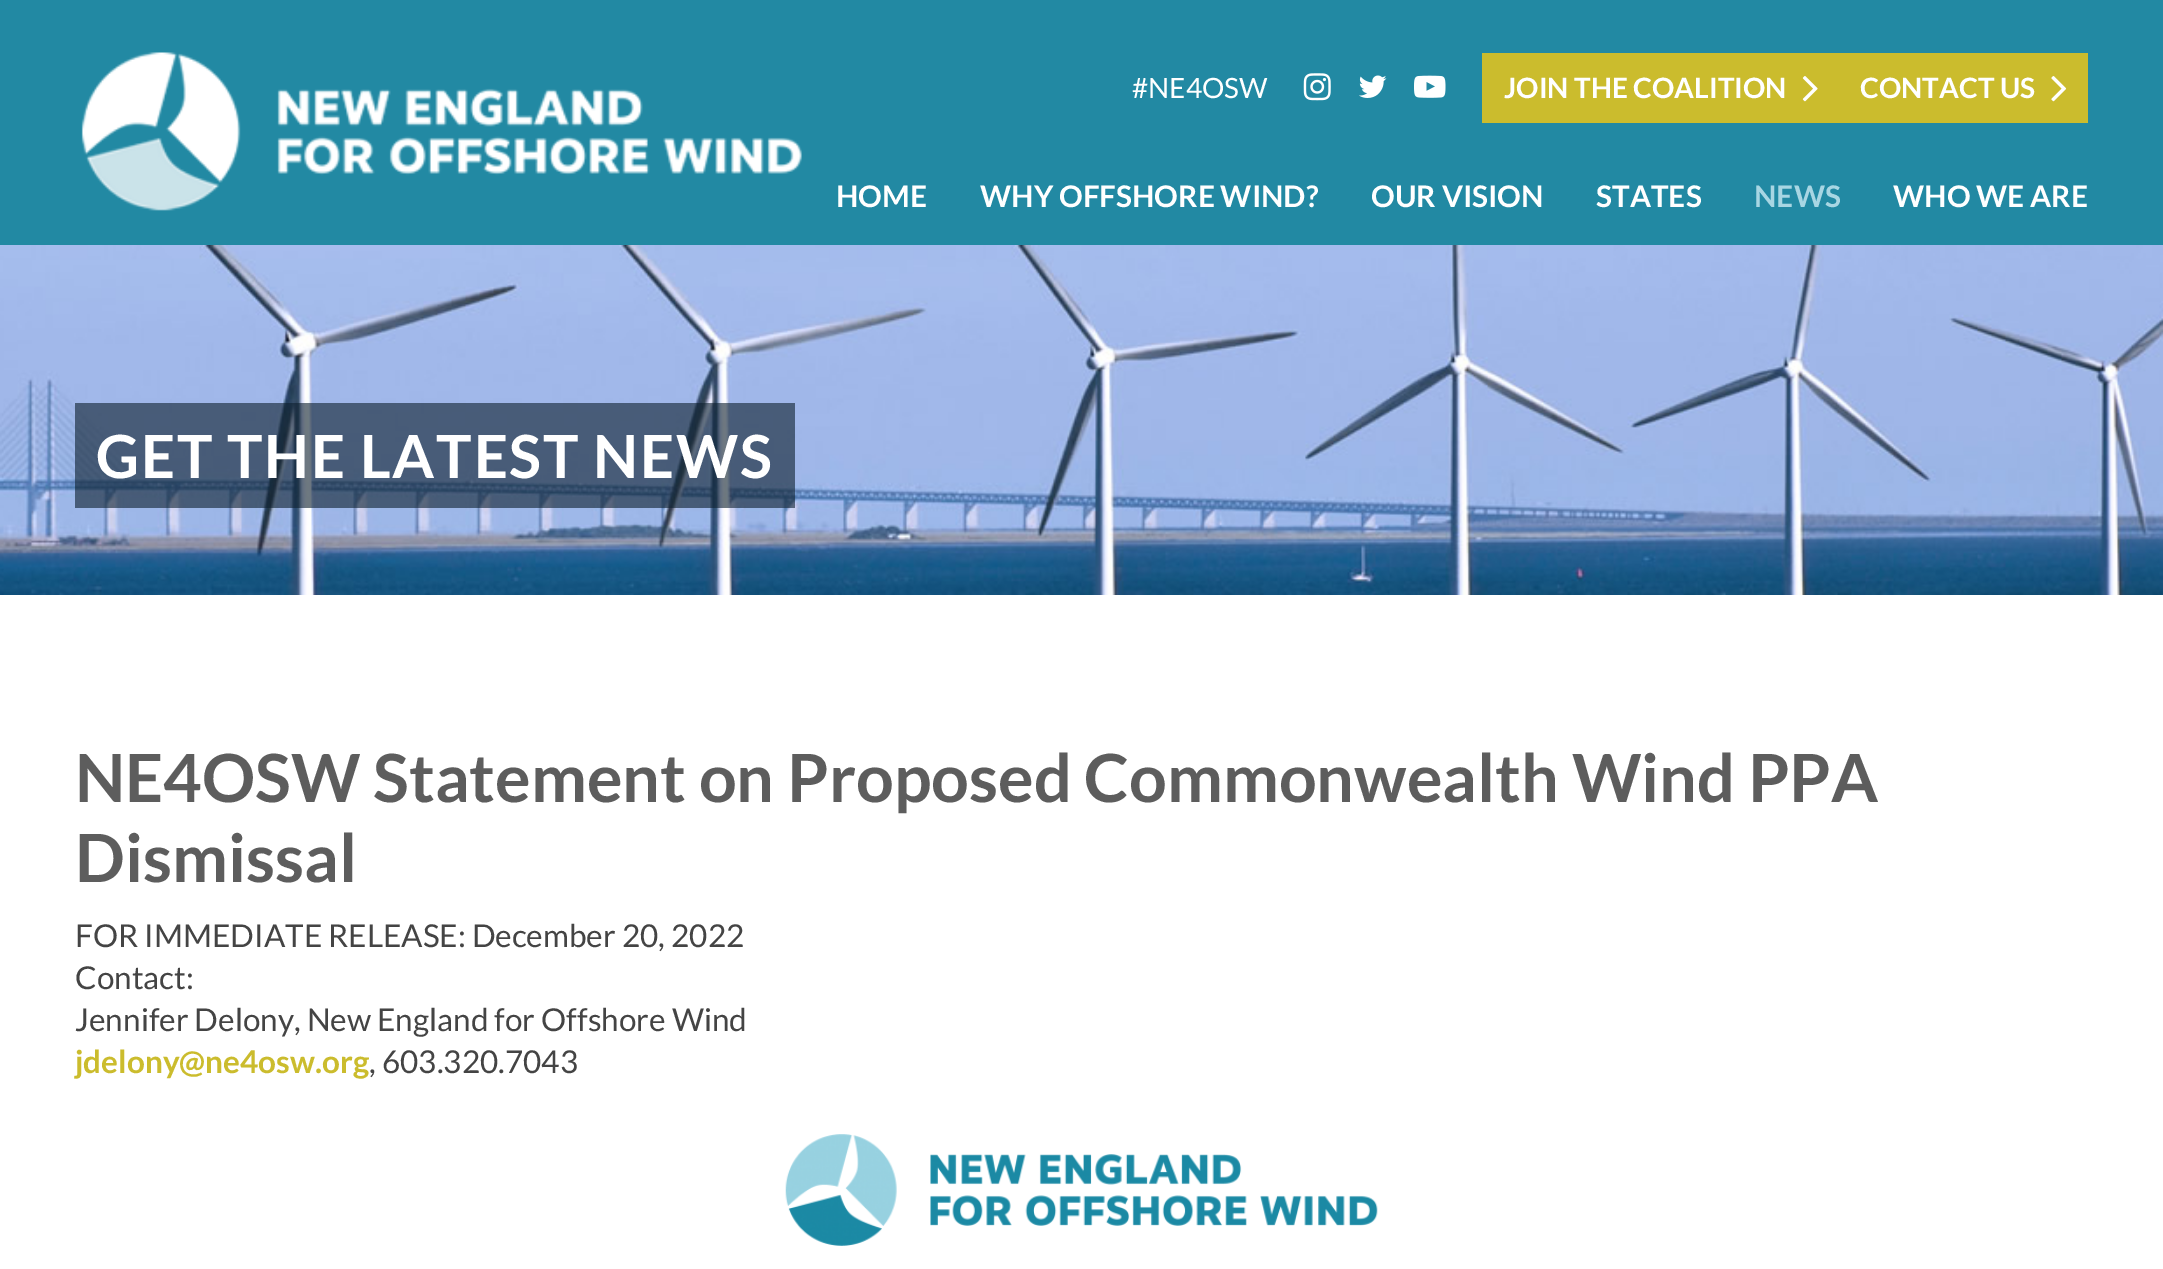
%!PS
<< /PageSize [2163 1269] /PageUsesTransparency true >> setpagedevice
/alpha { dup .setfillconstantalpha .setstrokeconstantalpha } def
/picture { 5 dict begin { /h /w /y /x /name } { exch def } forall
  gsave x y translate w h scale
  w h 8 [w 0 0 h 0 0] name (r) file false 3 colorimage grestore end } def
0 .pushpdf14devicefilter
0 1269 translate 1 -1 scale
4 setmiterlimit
1 setgray
0 0 2163 1269 rectfill
0.133 0.537 0.639 setrgbcolor
0 0 2163 245 rectfill
(img1.rgb) 81 52 721 159 picture
/Lato-Regular [28 0 0 -28 0 0] selectfont
1 setgray
1132 98 moveto (#NE4OSW) show
(img2.rgb) 1303 73 28 28 picture
(img3.rgb) 1359 75 28 23 picture
(img4.rgb) 1414 75 32 23 picture
0.796 0.737 0.176 setrgbcolor
1482 53 606 70 rectfill
/Lato-Bold [28 0 0 -28 0 0] selectfont
1 setgray
1504 98 moveto (JOIN THE COALITION) show
(img5.rgb) 1802 76 16 26 picture
1860 98 moveto (CONTACT US) show
(img6.rgb) 2051 76 16 26 picture
/Lato-Bold [29.75 0 0 -29.75 0 0] selectfont
836 207 moveto (HOME) show
980 207 moveto (WHY OFFSHORE WIND?) show
1371 207 moveto (OUR VISION) show
1596 207 moveto (STATES) show
0.659 0.839 0.89 setrgbcolor
1754 207 moveto (NEWS) show
1 setgray
1893 207 moveto (WHO WE ARE) show
(img7.rgb) 0 245 2163 350 picture
0.6 alpha
0.051 0.122 0.176 setrgbcolor
75 403 720 105 rectfill
/Lato-Bold [59.5 0 0 -59.5 0 0] selectfont
1 alpha
1 setgray
96 478 moveto 1.75 0 (GET THE LATEST NEWS) ashow
/Lato-Bold [66.5 0 0 -66.5 0 0] selectfont
0.365 setgray
75 802 moveto (NE4OSW Statement on Proposed Commonwealth Wind PPA) show
75 882 moveto (Dismissal) show
/Lato-Regular [31.5 0 0 -31.5 0 0] selectfont
0.267 setgray
75 947 moveto (FOR IMMEDIATE RELEASE: December 20, 2022) show
75 989 moveto (Contact:) show
75 1031 moveto (Jennifer Delony, New England for Offshore Wind) show
/Lato-Bold [31.5 0 0 -31.5 0 0] selectfont
0.796 0.737 0.176 setrgbcolor
75 1073 moveto (jdelony@ne4osw.org) show
/Lato-Regular [31.5 0 0 -31.5 0 0] selectfont
0.267 setgray
369 1073 moveto (, 603.320.7043) show
(img8.rgb) 785 1134 593 112 picture
.poppdf14devicefilter showpage
